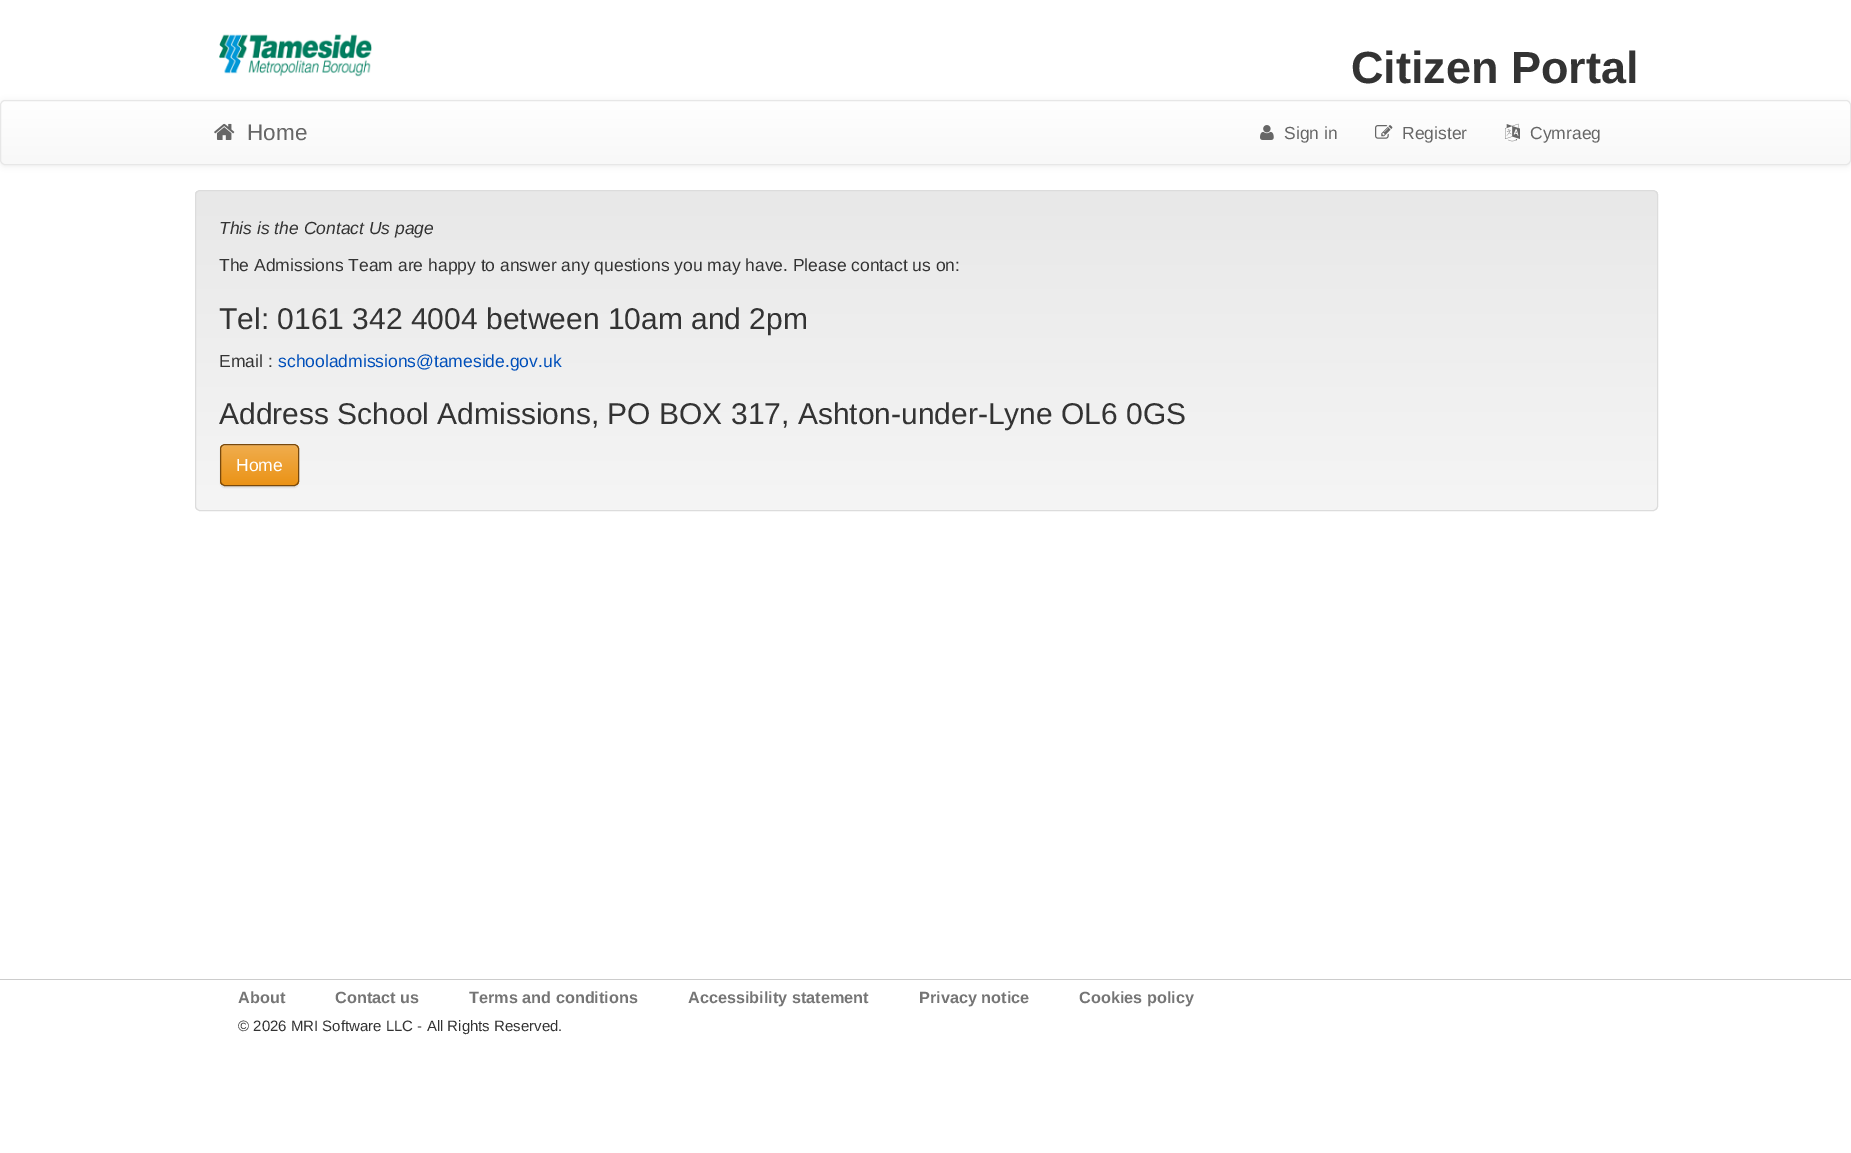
%!PS
<< /PageSize [1851 1153] /PageUsesTransparency true >> setpagedevice
/alpha { dup .setfillconstantalpha .setstrokeconstantalpha } def
/roundrect { 5 dict begin { /r /h /w /y /x } { exch def } forall
  x r add y moveto x w add y 2 copy h add r arct x w add y h add x 1 index r arct
  x y h add x y r arct x y 2 copy exch w add exch r arct closepath end } def
/shadow { 12 dict begin { /a /b /q /h /w /y /x } { exch def } forall gsave /was 0 def
  9 -2 -9 { dup b mul 4 div /e exch def 1 sub .425 mul 2.718 exch exp 1 add a .99 .min exch div /now exch def
    1 1 now sub 1 was sub div sub alpha /was now def
    w h .min e 2 mul add 0 gt { x e sub y e sub w e 2 mul add h e 2 mul add
      q e add b .6 mul add w h .min 2 div e add .min 0 .max roundrect fill } if } for grestore end } def
/picture { 5 dict begin { /h /w /y /x /name } { exch def } forall
  gsave x y translate w h scale
  w h 8 [w 0 0 h 0 0] name (r) file false 3 colorimage grestore end } def
0 .pushpdf14devicefilter
0 1153 translate 1 -1 scale
4 setmiterlimit
1 setgray
0 0 1851 1153 rectfill
(img1.rgb) 219 34 153 43 picture
/LiberationSans-Bold [45 0 0 -45 0 0] selectfont
0.2 setgray
1351 83 moveto (Citizen Portal) show
0 setgray
0 101 1851 65 5 3 0.07 shadow
gsave
0 100 1851 65 5 roundrect clip newpath
gsave newpath 0 101 moveto 1851 101 lineto 1851 164 lineto 0 164 lineto closepath clip newpath
<< /ShadingType 2 /ColorSpace /DeviceRGB /Coords [926 101 926 164] /Extend [true true] /Function << /FunctionType 2 /Domain [0 1] /C0 [1 1 1] /C1 [0.973 0.973 0.973] /N 1 >> >> shfill grestore
grestore
0.906 setgray
0.5 100.5 1850 64 4.5 roundrect stroke
(img2.rgb) 214 123 21 17 picture
/LiberationSans-Regular [22.5 0 0 -22.5 0 0] selectfont
0.4 setgray
247 140 moveto (Home) show
(img3.rgb) 1260 125 14 15 picture
/LiberationSans-Regular [17.5 0 0 -17.5 0 0] selectfont
1284 139 moveto (Sign in) show
(img4.rgb) 1375 125 18 14 picture
1402 139 moveto (Register) show
(img5.rgb) 1505 123 15 19 picture
1530 139 moveto (Cymraeg) show
gsave
195 190 1463 321 5 roundrect clip newpath
gsave newpath 195 191 moveto 1658 191 lineto 1658 510 lineto 195 510 lineto closepath clip newpath
<< /ShadingType 2 /ColorSpace /DeviceRGB /Coords [926 191 926 510] /Extend [true true] /Function << /FunctionType 2 /Domain [0 1] /C0 [0.91 0.91 0.91] /C1 [0.961 0.961 0.961] /N 1 >> >> shfill grestore
grestore
0.863 setgray
195.5 190.5 1462 320 4.5 roundrect stroke
/LiberationSans-Italic [17.5 0 0 -17.5 0 0] selectfont
0.2 setgray
219 234 moveto (This is the Contact Us page) show
/LiberationSans-Regular [17.5 0 0 -17.5 0 0] selectfont
219 271 moveto (The Admissions Team are happy to answer any questions you may have. Please contact us on:) show
/LiberationSans-Regular [30 0 0 -30 0 0] selectfont
219 329 moveto (Tel: 0161 342 4004 between 10am and 2pm) show
/LiberationSans-Regular [17.5 0 0 -17.5 0 0] selectfont
219 367 moveto (Email :) show
0 0.31 0.729 setrgbcolor
278 367 moveto (schooladmissions@tameside.gov.uk) show
/LiberationSans-Regular [30 0 0 -30 0 0] selectfont
0.2 setgray
219 424 moveto (Address School Admissions, PO BOX 317, Ashton-under-Lyne OL6 0GS) show
0 setgray
220 445 79 43 5 0.5 0.07 shadow
gsave
220 444 79 42 5 roundrect clip newpath
gsave newpath 220 445 moveto 299 445 lineto 299 485 lineto 220 485 lineto closepath clip newpath
<< /ShadingType 2 /ColorSpace /DeviceRGB /Coords [259 445 259 485] /Extend [true true] /Function << /FunctionType 2 /Domain [0 1] /C0 [0.941 0.678 0.306] /C1 [0.922 0.576 0.086] /N 1 >> >> shfill grestore
grestore
0.15 alpha
1 setgray
newpath 225 446 moveto 294 446 lineto 296 446 298 448 298 450 curveto 298 442 287 445 282 445 curveto 236 445 lineto 232 445 221 442 221 450 curveto 221 448 223 446 225 446 curveto closepath fill
1 alpha
0.471 0.286 0.051 setrgbcolor
220.5 444.5 78 41 4.5 roundrect stroke
/LiberationSans-Regular [17.5 0 0 -17.5 0 0] selectfont
1 setgray
236 471 moveto (Home) show
0.8 setgray
0 979 1851 1 rectfill
/LiberationSans-Bold [16.25 0 0 -16.25 0 0] selectfont
0.459 setgray
238 1003 moveto (About) show
335 1003 moveto (Contact us) show
469 1003 moveto (Terms and conditions) show
688 1003 moveto (Accessibility statement) show
919 1003 moveto (Privacy notice) show
1079 1003 moveto (Cookies policy) show
/LiberationSans-Regular [15 0 0 -15 0 0] selectfont
0.2 setgray
238 1031 moveto (© 2026 MRI Software LLC - All Rights Reserved.) show
.poppdf14devicefilter showpage
